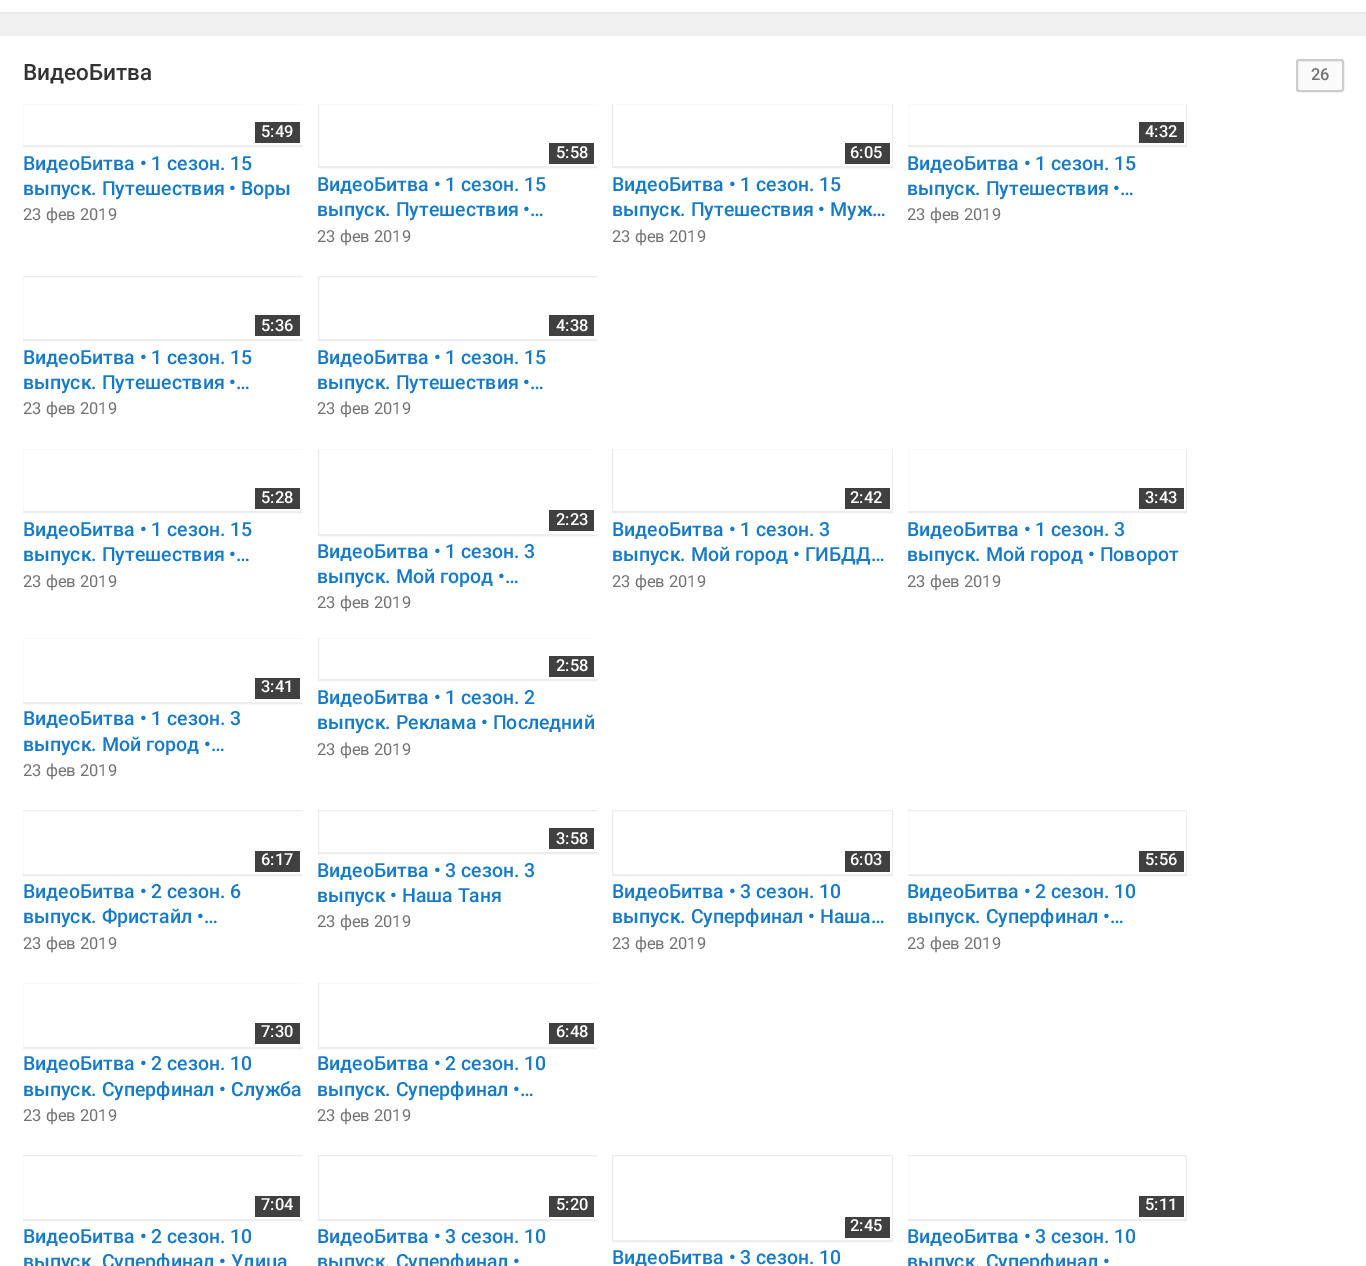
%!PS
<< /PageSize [1366 1266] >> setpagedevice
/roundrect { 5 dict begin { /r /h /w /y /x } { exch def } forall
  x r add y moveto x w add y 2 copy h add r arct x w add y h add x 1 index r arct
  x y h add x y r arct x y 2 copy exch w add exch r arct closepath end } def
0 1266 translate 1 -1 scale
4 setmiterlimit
0.945 setgray
0 0 1366 1266 rectfill
1 setgray
0 0 1366 12 rectfill
0.91 setgray
0 12 1366 2 rectfill
1 setgray
0 36 1366 1230 rectfill
/Roboto-Medium [22.5 0 0 -22.5 0 0] selectfont
0.2 setgray
23 80 moveto (ВидеоБитва) show
0.98 setgray
1297 60 46 31 2 roundrect gsave fill grestore
0.8 setgray
2 setlinewidth
stroke
/Roboto-Medium [16.5 0 0 -16.5 0 0] selectfont
0.451 setgray
1311 80 moveto (26) show
gsave
23 104 280 150 rectclip
0.929 setgray
22 103 282 43 rectstroke
grestore
0.251 setgray
255 122 45 21 rectfill
1 setgray
261 137 moveto (5:49) show
/Roboto-Medium [19.5 0 0 -19.5 0 0] selectfont
0.086 0.478 0.776 setrgbcolor
23 170 moveto (ВидеоБитва • 1 сезон. 15) show
23 195 moveto (выпуск. Путешествия • Воры) show
/Roboto-Regular [16.5 0 0 -16.5 0 0] selectfont
0.451 setgray
23 220 moveto (23 фев 2019) show
gsave
318 104 279 150 rectclip
0.929 setgray
318 103 280 64 rectstroke
grestore
0.251 setgray
549 143 45 21 rectfill
/Roboto-Medium [16.5 0 0 -16.5 0 0] selectfont
1 setgray
556 158 moveto (5:58) show
/Roboto-Medium [19.5 0 0 -19.5 0 0] selectfont
0.086 0.478 0.776 setrgbcolor
317 191 moveto (ВидеоБитва • 1 сезон. 15) show
317 216 moveto (выпуск. Путешествия •…) show
/Roboto-Regular [16.5 0 0 -16.5 0 0] selectfont
0.451 setgray
317 242 moveto (23 фев 2019) show
gsave
612 104 281 150 rectclip
0.929 setgray
612 103 281 64 rectstroke
grestore
0.251 setgray
845 143 45 21 rectfill
/Roboto-Medium [16.5 0 0 -16.5 0 0] selectfont
1 setgray
850 158 moveto (6:05) show
/Roboto-Medium [19.5 0 0 -19.5 0 0] selectfont
0.086 0.478 0.776 setrgbcolor
612 191 moveto (ВидеоБитва • 1 сезон. 15) show
612 216 moveto (выпуск. Путешествия • Муж…) show
/Roboto-Regular [16.5 0 0 -16.5 0 0] selectfont
0.451 setgray
612 242 moveto (23 фев 2019) show
gsave
908 104 279 150 rectclip
0.929 setgray
907 103 280 43 rectstroke
grestore
0.251 setgray
1139 122 45 21 rectfill
/Roboto-Medium [16.5 0 0 -16.5 0 0] selectfont
1 setgray
1145 137 moveto (4:32) show
/Roboto-Medium [19.5 0 0 -19.5 0 0] selectfont
0.086 0.478 0.776 setrgbcolor
907 170 moveto (ВидеоБитва • 1 сезон. 15) show
907 195 moveto (выпуск. Путешествия •…) show
gsave
908 104 279 150 rectclip
/Roboto-Regular [16.5 0 0 -16.5 0 0] selectfont
0.451 setgray
907 220 moveto (23 фев 2019) show
grestore
gsave
23 276 280 150 rectclip
0.929 setgray
22 276 282 64 rectstroke
grestore
0.251 setgray
255 315 45 21 rectfill
/Roboto-Medium [16.5 0 0 -16.5 0 0] selectfont
1 setgray
261 331 moveto (5:36) show
/Roboto-Medium [19.5 0 0 -19.5 0 0] selectfont
0.086 0.478 0.776 setrgbcolor
23 364 moveto (ВидеоБитва • 1 сезон. 15) show
23 389 moveto (выпуск. Путешествия •…) show
/Roboto-Regular [16.5 0 0 -16.5 0 0] selectfont
0.451 setgray
23 414 moveto (23 фев 2019) show
gsave
318 276 279 150 rectclip
0.929 setgray
318 276 280 64 rectstroke
grestore
0.251 setgray
549 315 45 21 rectfill
/Roboto-Medium [16.5 0 0 -16.5 0 0] selectfont
1 setgray
556 331 moveto (4:38) show
/Roboto-Medium [19.5 0 0 -19.5 0 0] selectfont
0.086 0.478 0.776 setrgbcolor
317 364 moveto (ВидеоБитва • 1 сезон. 15) show
317 389 moveto (выпуск. Путешествия •…) show
/Roboto-Regular [16.5 0 0 -16.5 0 0] selectfont
0.451 setgray
317 414 moveto (23 фев 2019) show
gsave
23 449 280 150 rectclip
0.929 setgray
22 448 282 64 rectstroke
grestore
0.251 setgray
255 488 45 21 rectfill
/Roboto-Medium [16.5 0 0 -16.5 0 0] selectfont
1 setgray
261 503 moveto (5:28) show
/Roboto-Medium [19.5 0 0 -19.5 0 0] selectfont
0.086 0.478 0.776 setrgbcolor
23 536 moveto (ВидеоБитва • 1 сезон. 15) show
23 561 moveto (выпуск. Путешествия •…) show
/Roboto-Regular [16.5 0 0 -16.5 0 0] selectfont
0.451 setgray
23 587 moveto (23 фев 2019) show
gsave
318 449 279 166 rectclip
0.929 setgray
318 448 280 87 rectstroke
grestore
0.251 setgray
549 510 45 21 rectfill
/Roboto-Medium [16.5 0 0 -16.5 0 0] selectfont
1 setgray
556 525 moveto (2:23) show
/Roboto-Medium [19.5 0 0 -19.5 0 0] selectfont
0.086 0.478 0.776 setrgbcolor
317 558 moveto (ВидеоБитва • 1 сезон. 3) show
317 583 moveto (выпуск. Мой город •…) show
/Roboto-Regular [16.5 0 0 -16.5 0 0] selectfont
0.451 setgray
317 608 moveto (23 фев 2019) show
gsave
612 449 281 150 rectclip
0.929 setgray
612 448 281 64 rectstroke
grestore
0.251 setgray
845 488 45 21 rectfill
/Roboto-Medium [16.5 0 0 -16.5 0 0] selectfont
1 setgray
850 503 moveto (2:42) show
/Roboto-Medium [19.5 0 0 -19.5 0 0] selectfont
0.086 0.478 0.776 setrgbcolor
612 536 moveto (ВидеоБитва • 1 сезон. 3) show
612 561 moveto (выпуск. Мой город • ГИБДД…) show
/Roboto-Regular [16.5 0 0 -16.5 0 0] selectfont
0.451 setgray
612 587 moveto (23 фев 2019) show
gsave
908 449 279 150 rectclip
0.929 setgray
907 448 280 64 rectstroke
grestore
0.251 setgray
1139 488 45 21 rectfill
/Roboto-Medium [16.5 0 0 -16.5 0 0] selectfont
1 setgray
1145 503 moveto (3:43) show
/Roboto-Medium [19.5 0 0 -19.5 0 0] selectfont
0.086 0.478 0.776 setrgbcolor
907 536 moveto (ВидеоБитва • 1 сезон. 3) show
907 561 moveto (выпуск. Мой город • Поворот) show
gsave
908 449 279 150 rectclip
/Roboto-Regular [16.5 0 0 -16.5 0 0] selectfont
0.451 setgray
907 587 moveto (23 фев 2019) show
grestore
gsave
23 638 280 150 rectclip
0.929 setgray
22 637 282 66 rectstroke
grestore
0.251 setgray
255 678 45 21 rectfill
/Roboto-Medium [16.5 0 0 -16.5 0 0] selectfont
1 setgray
261 692 moveto (3:41) show
/Roboto-Medium [19.5 0 0 -19.5 0 0] selectfont
0.086 0.478 0.776 setrgbcolor
23 725 moveto (ВидеоБитва • 1 сезон. 3) show
23 751 moveto (выпуск. Мой город •…) show
/Roboto-Regular [16.5 0 0 -16.5 0 0] selectfont
0.451 setgray
23 776 moveto (23 фев 2019) show
gsave
318 638 279 150 rectclip
0.929 setgray
318 637 280 43 rectstroke
grestore
0.251 setgray
549 656 45 21 rectfill
/Roboto-Medium [16.5 0 0 -16.5 0 0] selectfont
1 setgray
556 671 moveto (2:58) show
/Roboto-Medium [19.5 0 0 -19.5 0 0] selectfont
0.086 0.478 0.776 setrgbcolor
317 704 moveto (ВидеоБитва • 1 сезон. 2) show
317 729 moveto (выпуск. Реклама • Последний) show
/Roboto-Regular [16.5 0 0 -16.5 0 0] selectfont
0.451 setgray
317 755 moveto (23 фев 2019) show
gsave
23 810 280 150 rectclip
0.929 setgray
22 810 282 65 rectstroke
grestore
0.251 setgray
255 851 45 21 rectfill
/Roboto-Medium [16.5 0 0 -16.5 0 0] selectfont
1 setgray
261 865 moveto (6:17) show
/Roboto-Medium [19.5 0 0 -19.5 0 0] selectfont
0.086 0.478 0.776 setrgbcolor
23 898 moveto (ВидеоБитва • 2 сезон. 6) show
23 923 moveto (выпуск. Фристайл •…) show
/Roboto-Regular [16.5 0 0 -16.5 0 0] selectfont
0.451 setgray
23 949 moveto (23 фев 2019) show
gsave
318 810 279 150 rectclip
0.929 setgray
318 810 280 43 rectstroke
grestore
0.251 setgray
549 828 45 21 rectfill
/Roboto-Medium [16.5 0 0 -16.5 0 0] selectfont
1 setgray
556 844 moveto (3:58) show
/Roboto-Medium [19.5 0 0 -19.5 0 0] selectfont
0.086 0.478 0.776 setrgbcolor
317 877 moveto (ВидеоБитва • 3 сезон. 3) show
317 902 moveto (выпуск • Наша Таня) show
/Roboto-Regular [16.5 0 0 -16.5 0 0] selectfont
0.451 setgray
317 927 moveto (23 фев 2019) show
gsave
612 810 281 150 rectclip
0.929 setgray
612 810 281 65 rectstroke
grestore
0.251 setgray
845 851 45 21 rectfill
/Roboto-Medium [16.5 0 0 -16.5 0 0] selectfont
1 setgray
850 865 moveto (6:03) show
/Roboto-Medium [19.5 0 0 -19.5 0 0] selectfont
0.086 0.478 0.776 setrgbcolor
612 898 moveto (ВидеоБитва • 3 сезон. 10) show
612 923 moveto (выпуск. Суперфинал • Наша…) show
/Roboto-Regular [16.5 0 0 -16.5 0 0] selectfont
0.451 setgray
612 949 moveto (23 фев 2019) show
gsave
908 810 279 150 rectclip
0.929 setgray
907 810 280 65 rectstroke
grestore
0.251 setgray
1139 851 45 21 rectfill
/Roboto-Medium [16.5 0 0 -16.5 0 0] selectfont
1 setgray
1145 865 moveto (5:56) show
/Roboto-Medium [19.5 0 0 -19.5 0 0] selectfont
0.086 0.478 0.776 setrgbcolor
907 898 moveto (ВидеоБитва • 2 сезон. 10) show
907 923 moveto (выпуск. Суперфинал •…) show
gsave
908 810 279 150 rectclip
/Roboto-Regular [16.5 0 0 -16.5 0 0] selectfont
0.451 setgray
907 949 moveto (23 фев 2019) show
grestore
gsave
23 983 280 150 rectclip
0.929 setgray
22 982 282 66 rectstroke
grestore
0.251 setgray
255 1023 45 21 rectfill
/Roboto-Medium [16.5 0 0 -16.5 0 0] selectfont
1 setgray
261 1037 moveto (7:30) show
/Roboto-Medium [19.5 0 0 -19.5 0 0] selectfont
0.086 0.478 0.776 setrgbcolor
23 1070 moveto (ВидеоБитва • 2 сезон. 10) show
23 1096 moveto (выпуск. Суперфинал • Служба) show
/Roboto-Regular [16.5 0 0 -16.5 0 0] selectfont
0.451 setgray
23 1121 moveto (23 фев 2019) show
gsave
318 983 279 150 rectclip
0.929 setgray
318 982 280 66 rectstroke
grestore
0.251 setgray
549 1023 45 21 rectfill
/Roboto-Medium [16.5 0 0 -16.5 0 0] selectfont
1 setgray
556 1037 moveto (6:48) show
/Roboto-Medium [19.5 0 0 -19.5 0 0] selectfont
0.086 0.478 0.776 setrgbcolor
317 1070 moveto (ВидеоБитва • 2 сезон. 10) show
317 1096 moveto (выпуск. Суперфинал •…) show
/Roboto-Regular [16.5 0 0 -16.5 0 0] selectfont
0.451 setgray
317 1121 moveto (23 фев 2019) show
gsave
23 1155 280 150 rectclip
0.929 setgray
22 1155 282 65 rectstroke
grestore
0.251 setgray
255 1196 45 21 rectfill
/Roboto-Medium [16.5 0 0 -16.5 0 0] selectfont
1 setgray
261 1210 moveto (7:04) show
/Roboto-Medium [19.5 0 0 -19.5 0 0] selectfont
0.086 0.478 0.776 setrgbcolor
23 1243 moveto (ВидеоБитва • 2 сезон. 10) show
23 1268 moveto (выпуск. Суперфинал • Улица) show
gsave
318 1155 279 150 rectclip
0.929 setgray
318 1155 280 65 rectstroke
grestore
0.251 setgray
549 1196 45 21 rectfill
/Roboto-Medium [16.5 0 0 -16.5 0 0] selectfont
1 setgray
556 1210 moveto (5:20) show
/Roboto-Medium [19.5 0 0 -19.5 0 0] selectfont
0.086 0.478 0.776 setrgbcolor
317 1243 moveto (ВидеоБитва • 3 сезон. 10) show
317 1268 moveto (выпуск. Суперфинал •) show
gsave
612 1155 281 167 rectclip
0.929 setgray
612 1155 281 86 rectstroke
grestore
0.251 setgray
845 1217 45 21 rectfill
/Roboto-Medium [16.5 0 0 -16.5 0 0] selectfont
1 setgray
850 1231 moveto (2:45) show
/Roboto-Medium [19.5 0 0 -19.5 0 0] selectfont
0.086 0.478 0.776 setrgbcolor
612 1264 moveto (ВидеоБитва • 3 сезон. 10) show
gsave
908 1155 279 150 rectclip
0.929 setgray
907 1155 280 65 rectstroke
grestore
0.251 setgray
1139 1196 45 21 rectfill
/Roboto-Medium [16.5 0 0 -16.5 0 0] selectfont
1 setgray
1145 1210 moveto (5:11) show
/Roboto-Medium [19.5 0 0 -19.5 0 0] selectfont
0.086 0.478 0.776 setrgbcolor
907 1243 moveto (ВидеоБитва • 3 сезон. 10) show
907 1268 moveto (выпуск. Суперфинал •) show
showpage
